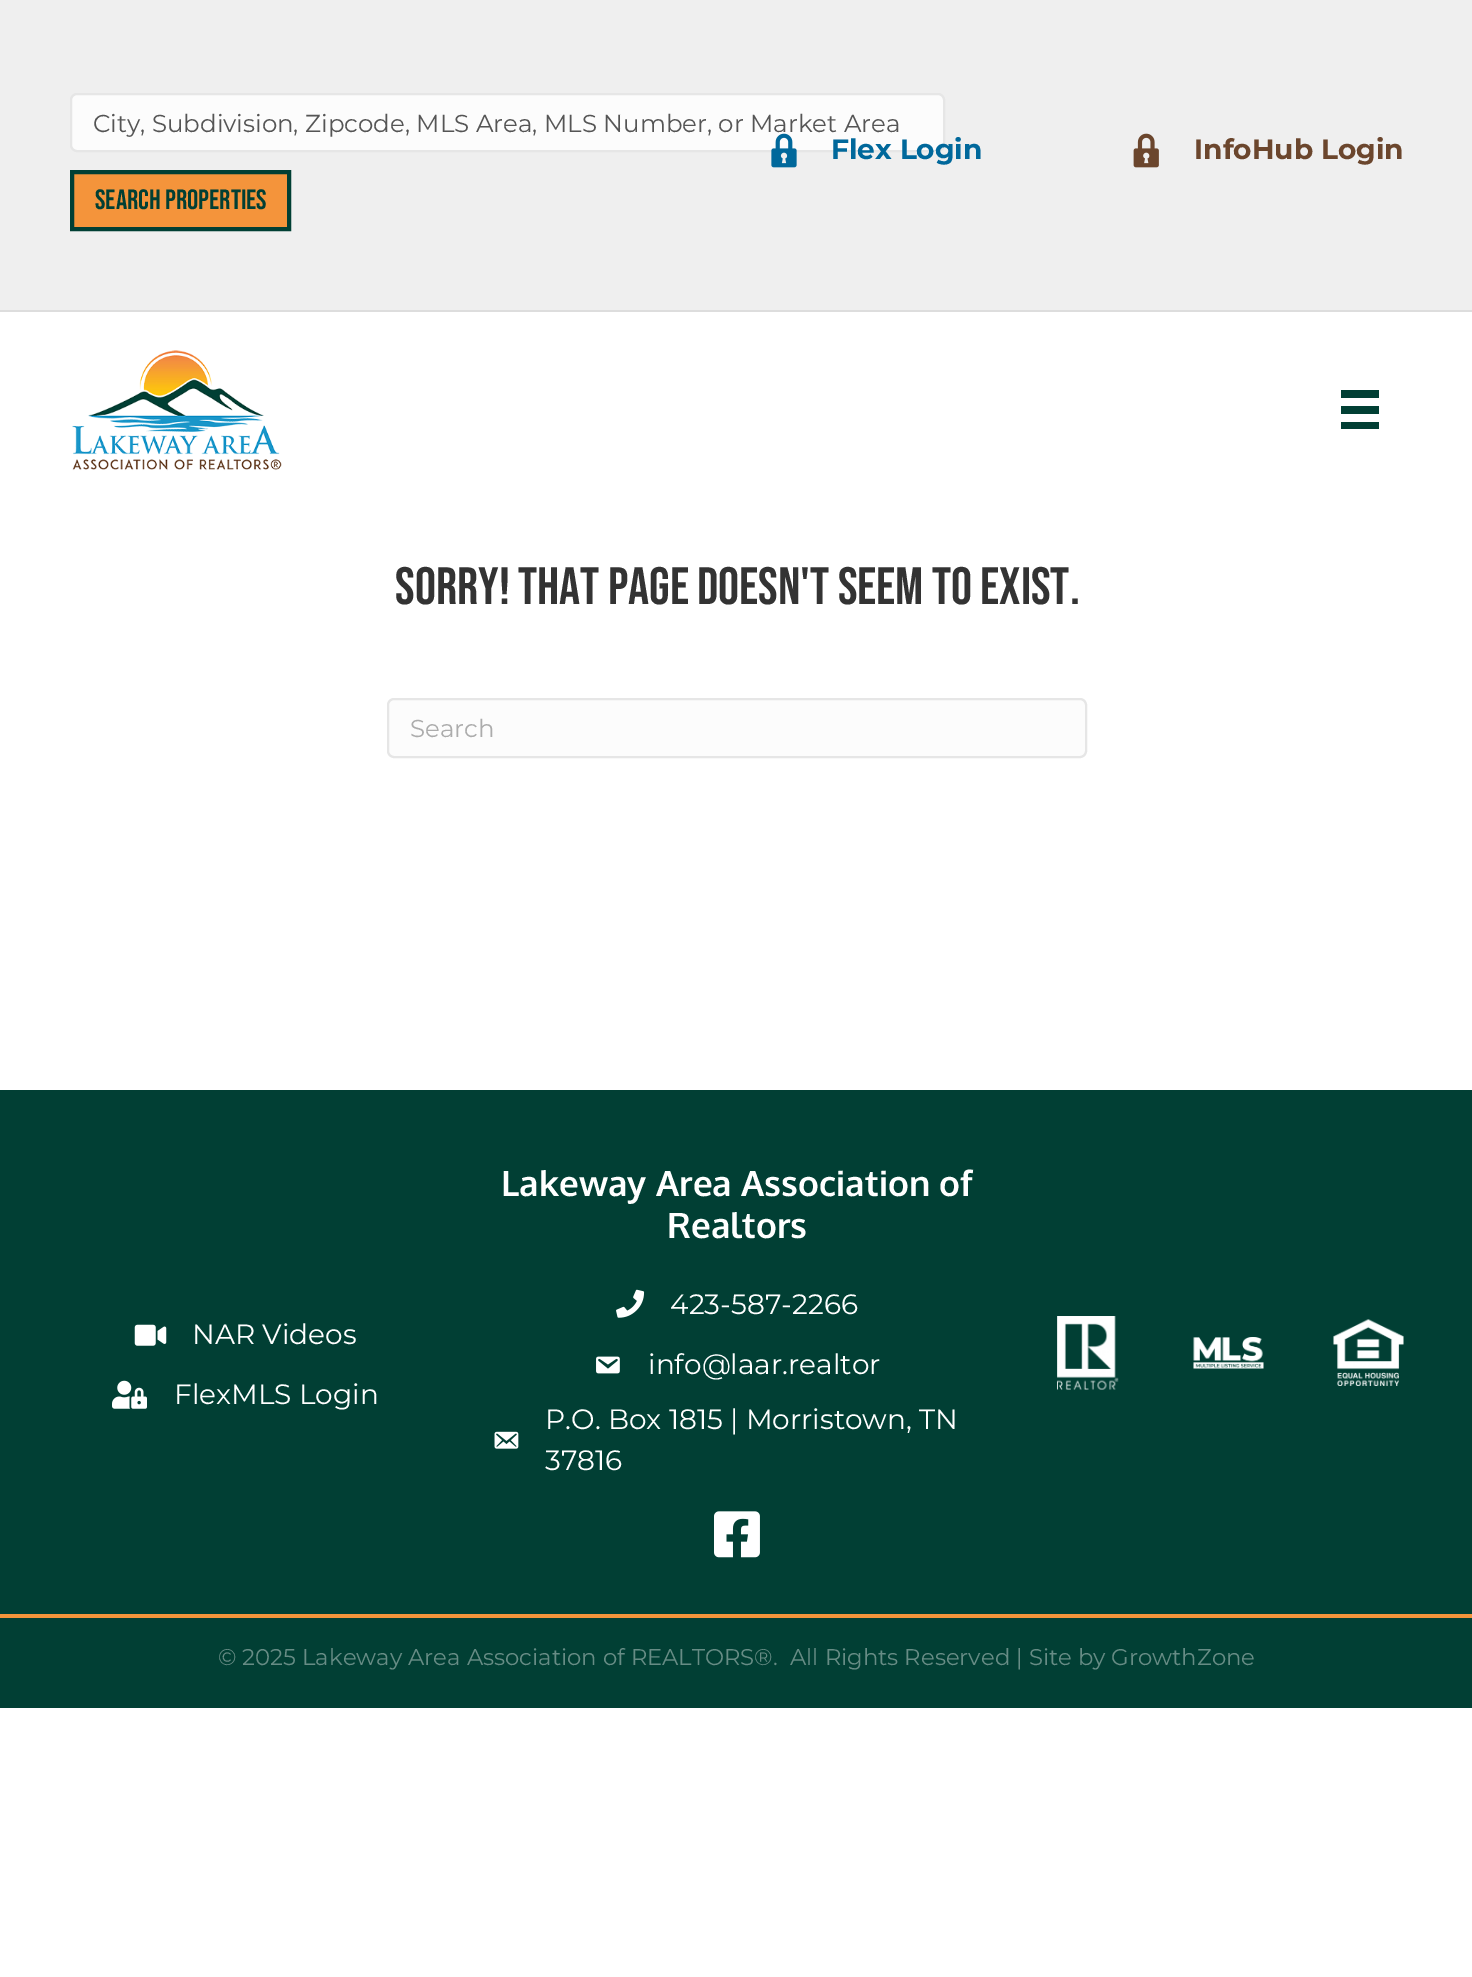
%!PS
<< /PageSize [1472 1977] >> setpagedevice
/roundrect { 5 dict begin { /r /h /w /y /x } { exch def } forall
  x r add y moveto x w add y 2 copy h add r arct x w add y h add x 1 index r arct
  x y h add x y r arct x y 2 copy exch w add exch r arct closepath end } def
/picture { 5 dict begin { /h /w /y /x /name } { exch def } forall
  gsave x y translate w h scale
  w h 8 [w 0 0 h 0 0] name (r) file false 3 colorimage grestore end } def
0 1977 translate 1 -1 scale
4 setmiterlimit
1 setgray
0 0 1472 1977 rectfill
0.937 setgray
0 0 1472 310 rectfill
0.867 setgray
0 310 1472 2 rectfill
0.988 setgray
71 94 873 57 6 roundrect gsave fill grestore
0.902 setgray
2 setlinewidth
stroke
/Montserrat-Regular [24.5 0 0 -24.5 0 0] selectfont
0.333 setgray
93 132 moveto (City, Subdivision, Zipcode, MLS Area, MLS Number, or Market Area) show
0.957 0.58 0.231 setrgbcolor
newpath 72 172 moveto 289 172 lineto 289 229 lineto 72 229 lineto closepath gsave fill grestore
0.004 0.247 0.204 setrgbcolor
4 setlinewidth
stroke
/BebasNeue-Regular [28 0 0 -28 0 0] selectfont
95 209 moveto (Search Properties) show
(img1.rgb) 771 133 26 35 picture
/Montserrat-Bold [28 0 0 -28 0 0] selectfont
0 0.408 0.608 setrgbcolor
831 159 moveto (Flex Login) show
(img2.rgb) 1133 133 26 35 picture
0.42 0.275 0.176 setrgbcolor
1194 159 moveto (InfoHub Login) show
(img3.rgb) 72 350 210 121 picture
0.004 0.247 0.204 setrgbcolor
1341 390 38 8 rectfill
1341 406 38 8 rectfill
1341 422 38 7 rectfill
/BebasNeue-Regular [52.5 0 0 -52.5 0 0] selectfont
0.2 setgray
395 604 moveto (Sorry! That page doesn't seem to exist.) show
0.988 setgray
388 699 698 58 6 roundrect gsave fill grestore
0.902 setgray
2 setlinewidth
stroke
/Montserrat-Regular [24.5 0 0 -24.5 0 0] selectfont
0.675 setgray
410 737 moveto (Search) show
0.004 0.247 0.204 setrgbcolor
0 1090 1472 524 rectfill
(img4.rgb) 134 1324 33 22 picture
/Montserrat-Regular [28 0 0 -28 0 0] selectfont
1 setgray
192 1344 moveto (NAR Videos) show
(img5.rgb) 112 1380 35 29 picture
174 1404 moveto (FlexMLS Login) show
/Oxygen-Bold [35 0 0 -35 0 0] selectfont
501 1196 moveto (Lakeway Area Association of) show
667 1238 moveto (Realtors) show
(img6.rgb) 616 1289 29 29 picture
/Montserrat-Regular [28 0 0 -28 0 0] selectfont
670 1314 moveto (423-587-2266) show
(img7.rgb) 596 1356 24 18 picture
648 1374 moveto (info@laar.realtor) show
(img8.rgb) 494 1431 25 18 picture
545 1429 moveto (P.O. Box 1815 | Morristown, TN) show
545 1470 moveto (37816) show
(img9.rgb) 714 1511 46 47 picture
(img10.rgb) 1057 1316 62 74 picture
(img11.rgb) 1193 1337 71 32 picture
(img12.rgb) 1333 1319 71 67 picture
0.004 0.247 0.204 setrgbcolor
0 1618 1472 90 rectfill
0.957 0.58 0.231 setrgbcolor
0 1614 1472 4 rectfill
/Montserrat-Regular [22.75 0 0 -22.75 0 0] selectfont
0.404 0.549 0.522 setrgbcolor
218 1665 moveto (© 2025 Lakeway Area Association of REALTORS®.) show
790 1665 moveto (All Rights Reserved | Site by GrowthZone) show
showpage
